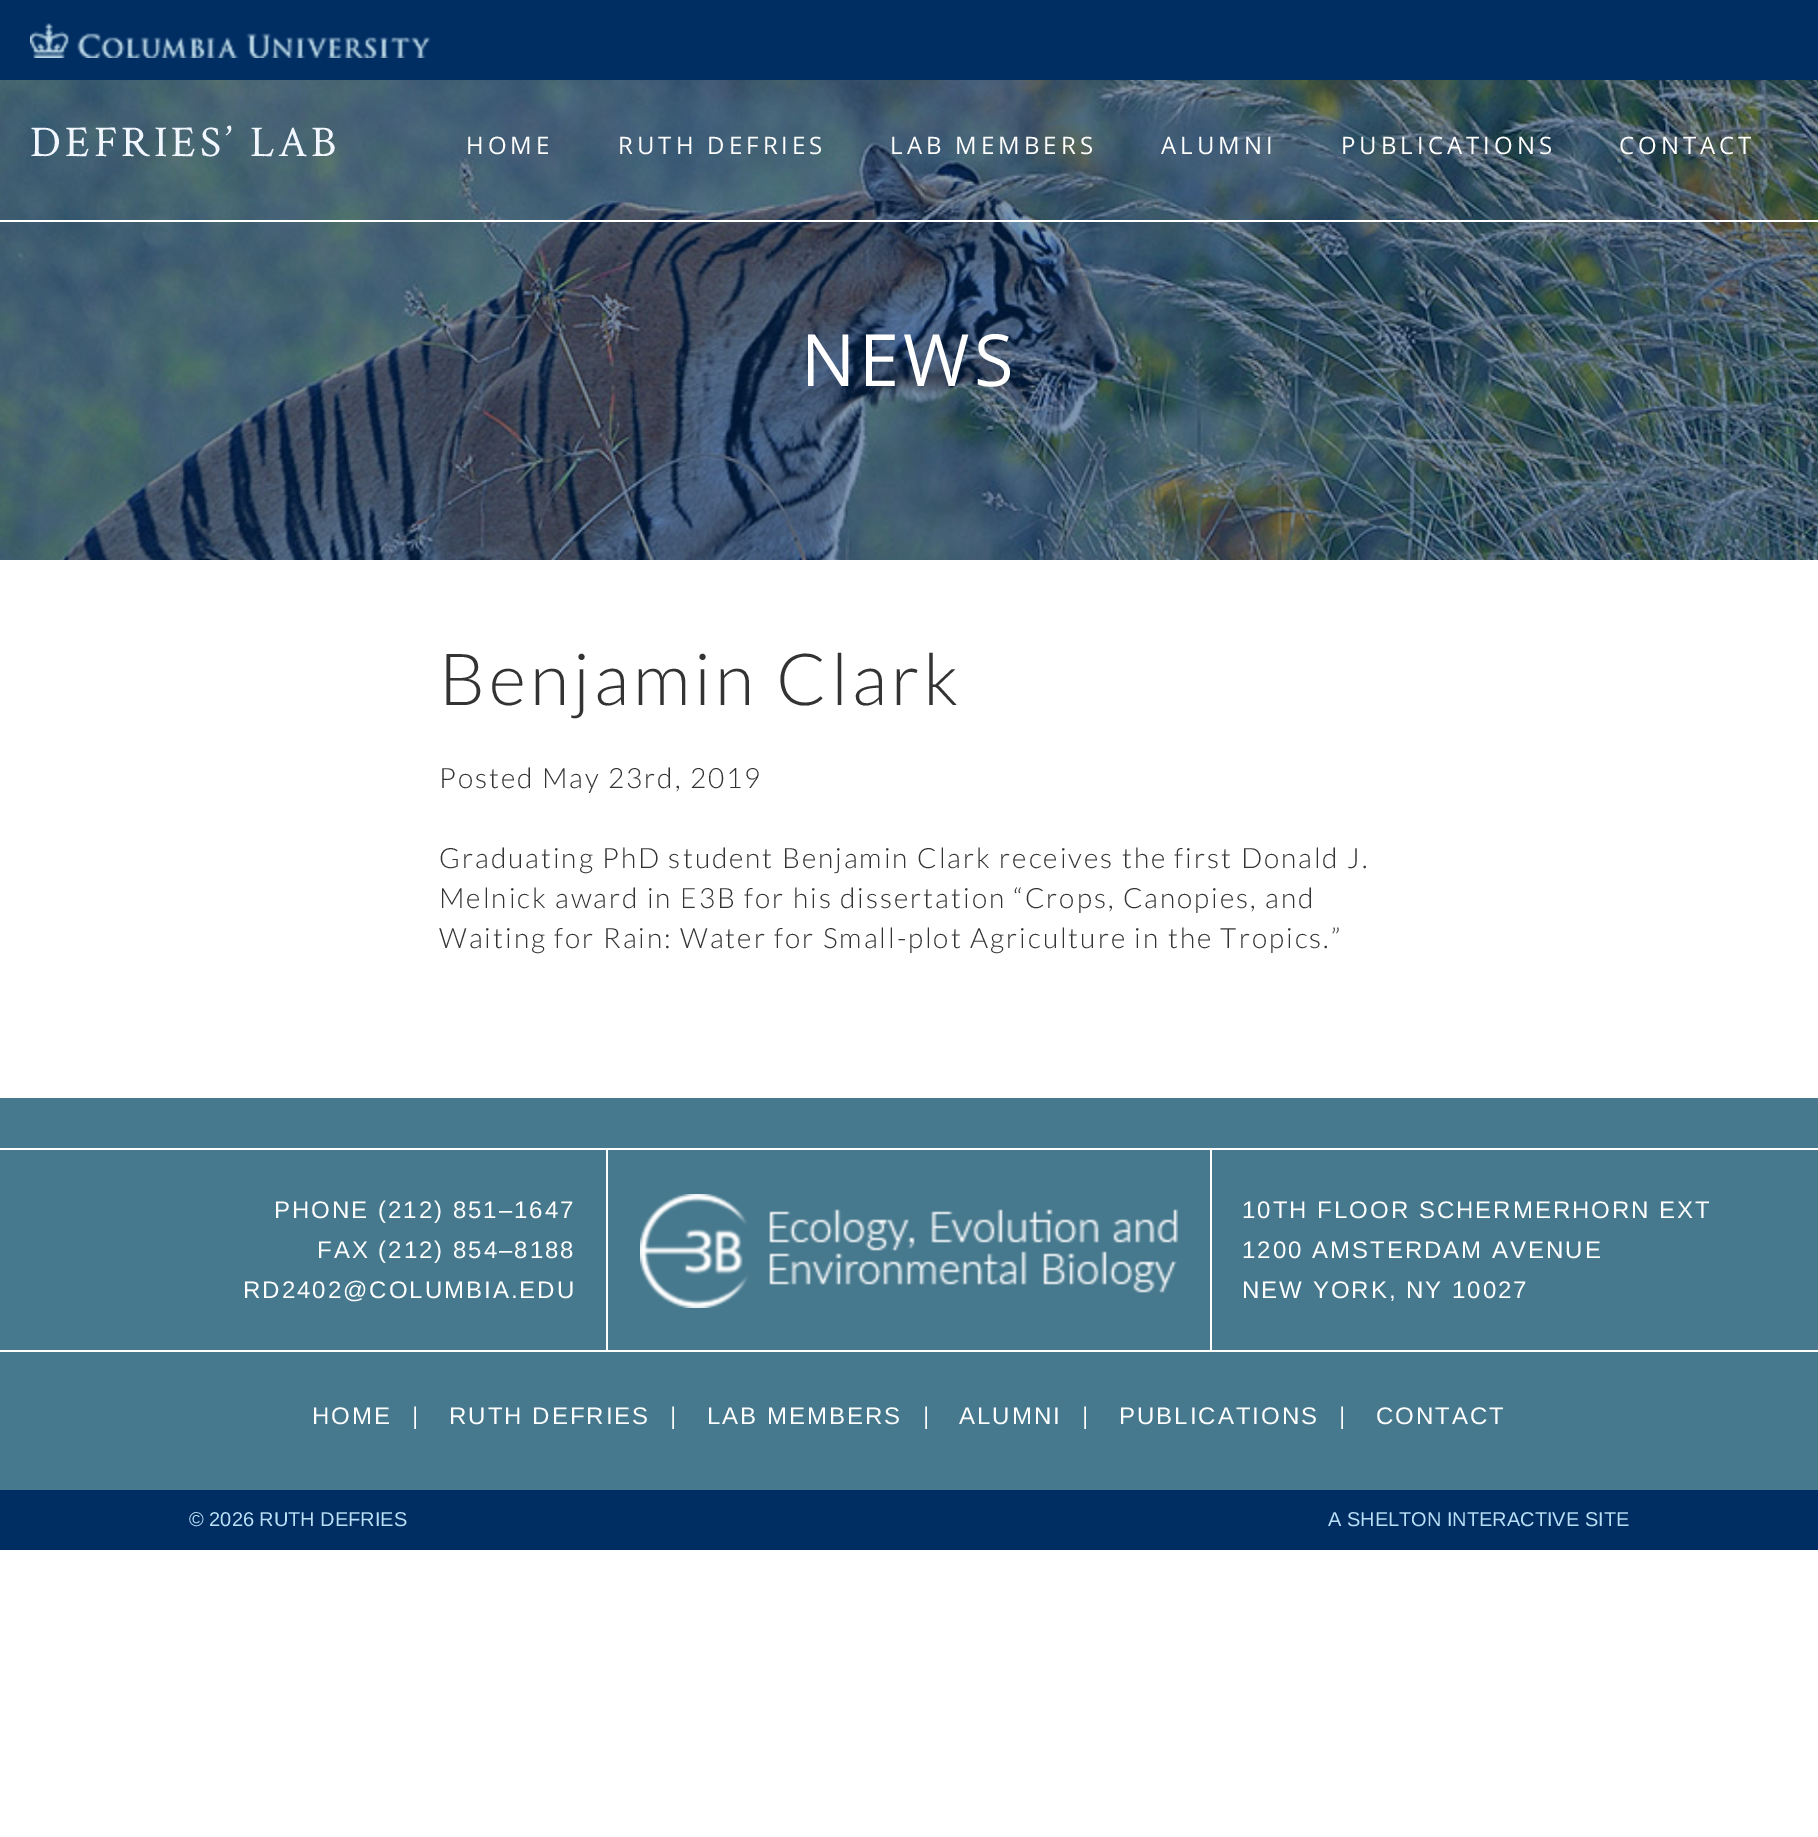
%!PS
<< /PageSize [1818 1837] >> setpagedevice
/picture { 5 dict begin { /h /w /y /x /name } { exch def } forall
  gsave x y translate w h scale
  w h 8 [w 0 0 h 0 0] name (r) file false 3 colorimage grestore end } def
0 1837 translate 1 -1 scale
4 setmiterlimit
1 setgray
0 0 1818 1837 rectfill
(img2.rgb) 0 80 1818 480 picture
0 220 1818 2 rectfill
0 0.176 0.384 setrgbcolor
0 0 1818 80 rectfill
(img1.rgb) 30 23 400 35 picture
/CrimsonText-Regular [44 0 0 -44 0 0] selectfont
0.945 0.965 1 setrgbcolor
30 156 moveto 4 0 (DEFRIES’ LAB) ashow
/OpenSans-Regular [24 0 0 -24 0 0] selectfont
1 setgray
466 154 moveto 4 0 (HOME) ashow
618 154 moveto 4 0 (RUTH DEFRIES) ashow
890 154 moveto 4 0 (LAB MEMBERS) ashow
1161 154 moveto 4 0 (ALUMNI) ashow
1341 154 moveto 4 0 (PUBLICATIONS) ashow
1619 154 moveto 4 0 (CONTACT) ashow
/OpenSans-Regular [72 0 0 -72 0 0] selectfont
801 386 moveto 4 0 (NEWS) ashow
/Lato-Light [72 0 0 -72 0 0] selectfont
0.2 setgray
439 705 moveto 4 0 (Benjamin Clark) ashow
/Lato-Light [28 0 0 -28 0 0] selectfont
439 788 moveto 2 0 (Posted May 23rd, 2019) ashow
439 868 moveto 2 0 (Graduating PhD student Benjamin Clark receives the first Donald J.) ashow
439 908 moveto 2 0 (Melnick award in E3B for his dissertation “Crops, Canopies, and) ashow
439 948 moveto 2 0 (Waiting for Rain: Water for Small-plot Agriculture in the Tropics.”) ashow
0.275 0.475 0.557 setrgbcolor
0 1098 1818 392 rectfill
1 setgray
0 1148 1818 2 rectfill
0 1350 1818 2 rectfill
/LiberationSans-Regular [24 0 0 -24 0 0] selectfont
274 1218 moveto 2 0 (PHONE \(212\) 851–1647) ashow
317 1258 moveto 2 0 (FAX \(212\) 854–8188) ashow
243 1298 moveto 2 0 (RD2402@COLUMBIA.EDU) ashow
1210 1150 2 200 rectfill
606 1150 2 200 rectfill
(img3.rgb) 640 1194 538 114 picture
1242 1218 moveto 2 0 (10TH FLOOR SCHERMERHORN EXT) ashow
1242 1258 moveto 2 0 (1200 AMSTERDAM AVENUE) ashow
1242 1298 moveto 2 0 (NEW YORK, NY 10027) ashow
312 1424 moveto 2 0 (HOME) ashow
412 1424 moveto 2 0 (|) ashow
449 1424 moveto 2 0 (RUTH DEFRIES) ashow
670 1424 moveto 2 0 (|) ashow
707 1424 moveto 2 0 (LAB MEMBERS) ashow
923 1424 moveto 2 0 (|) ashow
959 1424 moveto 2 0 (ALUMNI) ashow
1082 1424 moveto 2 0 (|) ashow
1119 1424 moveto 2 0 (PUBLICATIONS) ashow
1339 1424 moveto 2 0 (|) ashow
1376 1424 moveto 2 0 (CONTACT) ashow
0 0.176 0.384 setrgbcolor
0 1490 1818 60 rectfill
/LiberationSans-Regular [20 0 0 -20 0 0] selectfont
0.725 0.878 0.969 setrgbcolor
189 1526 moveto (© 2026 RUTH DEFRIES) show
1328 1526 moveto (A SHELTON INTERACTIVE SITE) show
showpage
